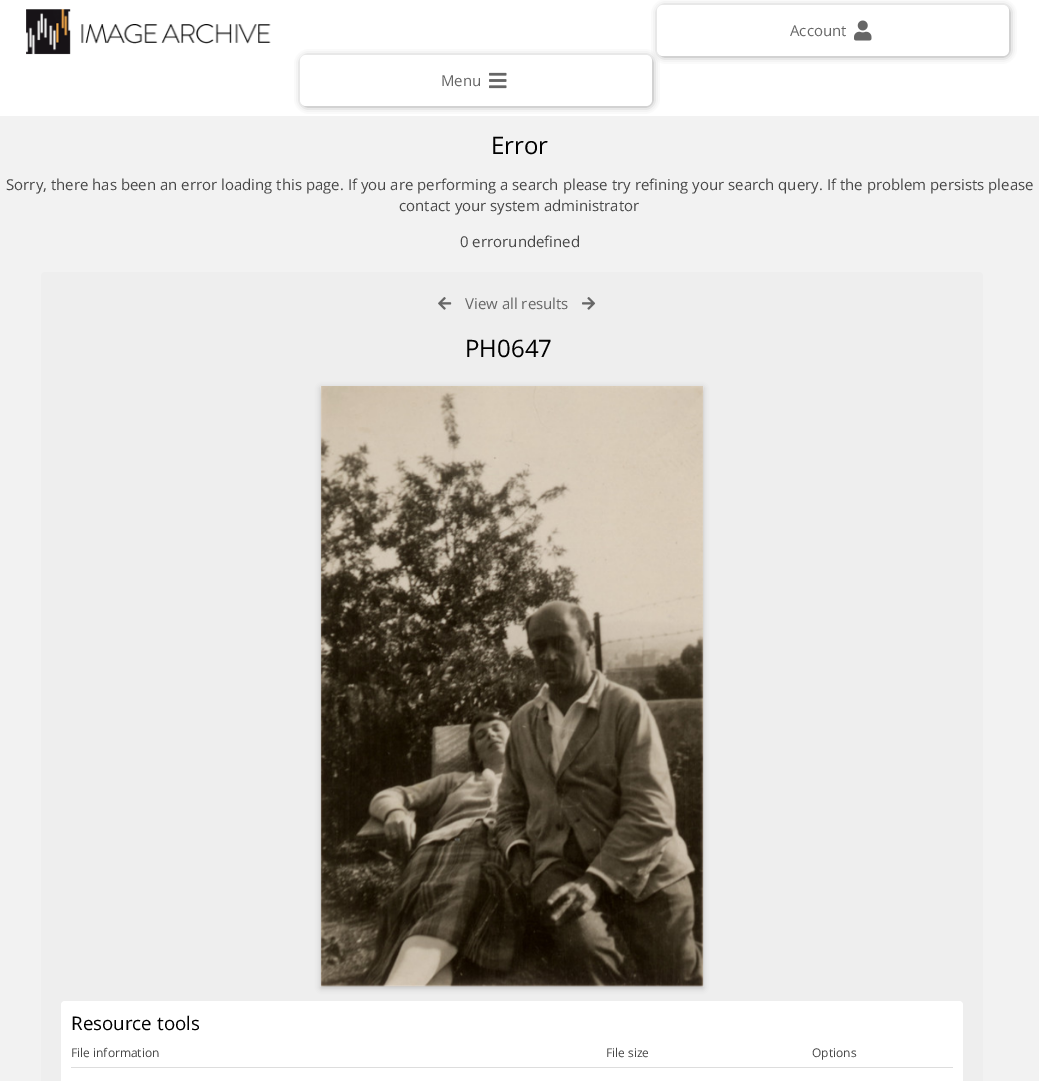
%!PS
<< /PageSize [1039 1081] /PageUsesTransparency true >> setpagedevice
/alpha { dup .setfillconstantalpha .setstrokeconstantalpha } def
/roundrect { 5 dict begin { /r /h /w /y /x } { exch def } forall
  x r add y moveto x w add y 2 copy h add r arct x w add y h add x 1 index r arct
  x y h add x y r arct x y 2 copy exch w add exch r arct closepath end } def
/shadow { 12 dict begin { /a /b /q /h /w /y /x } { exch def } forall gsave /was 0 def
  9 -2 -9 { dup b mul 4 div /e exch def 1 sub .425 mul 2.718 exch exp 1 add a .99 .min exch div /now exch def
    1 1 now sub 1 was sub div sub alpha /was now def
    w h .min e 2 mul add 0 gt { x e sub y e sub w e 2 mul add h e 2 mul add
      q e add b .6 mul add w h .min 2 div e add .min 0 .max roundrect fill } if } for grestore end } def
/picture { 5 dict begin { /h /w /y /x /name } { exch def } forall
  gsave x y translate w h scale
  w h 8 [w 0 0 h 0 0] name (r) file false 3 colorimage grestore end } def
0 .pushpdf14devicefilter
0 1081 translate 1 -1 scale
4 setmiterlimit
0.949 setgray
0 0 1039 1081 rectfill
1 setgray
0 0 1039 116 rectfill
(img1.rgb) 26 9 245 46 picture
0.4 setgray
660 8 348 47 4 4 1 shadow
1 setgray
657 5 352 51 6 roundrect fill
/OpenSans-Regular [15 0 0 -15 0 0] selectfont
0.4 setgray
790 36 moveto (Account) show
(img2.rgb) 854 20 18 21 picture
303 58 348 47 4 4 1 shadow
1 setgray
300 55 352 51 6 roundrect fill
0.4 setgray
441 86 moveto (Menu) show
(img3.rgb) 489 72 18 17 picture
/OpenSans-Regular [24 0 0 -24 0 0] selectfont
0 setgray
491 154 moveto (Error) show
/OpenSans-Regular [15 0 0 -15 0 0] selectfont
0.278 setgray
6 190 moveto (Sorry, there has been an error loading this page. If you are performing a search please try refining your search query. If the problem persists please) show
399 211 moveto (contact your system administrator) show
460 247 moveto (0 errorundefined) show
0.933 setgray
41 272 942 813 4 roundrect fill
(img4.rgb) 438 297 14 13 picture
0.4 setgray
465 309 moveto (View all results) show
(img5.rgb) 582 297 14 13 picture
/OpenSans-Regular [24 0 0 -24 0 0] selectfont
0 setgray
465 357 moveto (PH0647) show
321 388 382 600 0 3 0.2 shadow
(img6.rgb) 320 386 384 601 picture
1 setgray
61 1001 902 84 4 roundrect fill
/OpenSans-Regular [18.75 0 0 -18.75 0 0] selectfont
0 setgray
71 1030 moveto (Resource tools) show
/OpenSans-Regular [12 0 0 -12 0 0] selectfont
0.278 setgray
71 1057 moveto (File information) show
606 1057 moveto (File size) show
812 1057 moveto (Options) show
0.867 setgray
71 1067 882 1 rectfill
.poppdf14devicefilter showpage
